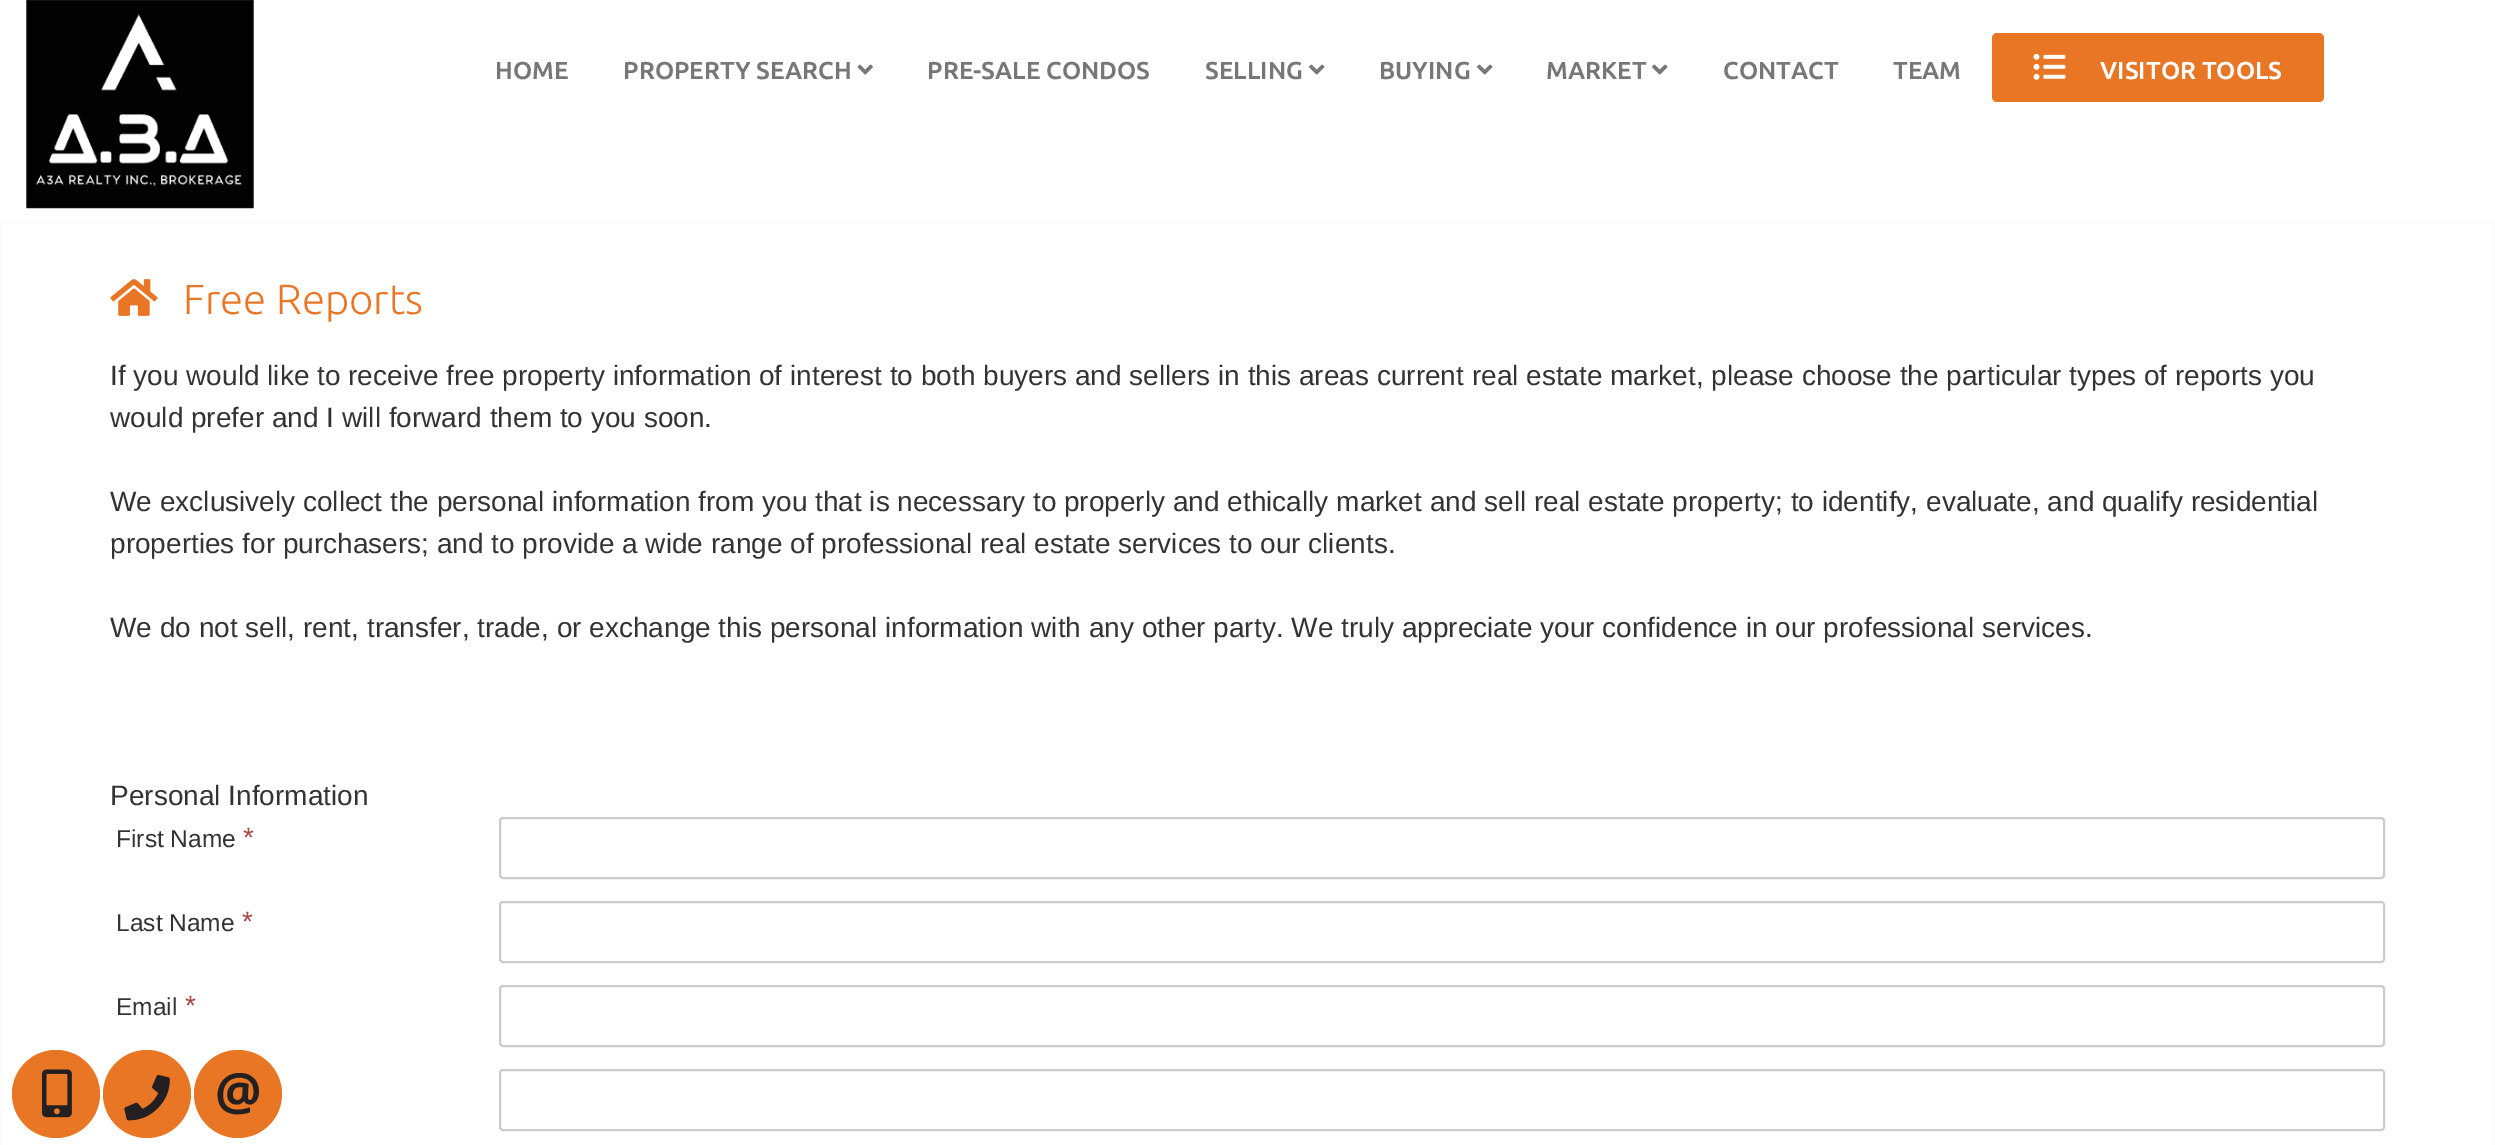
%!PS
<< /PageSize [2495 1145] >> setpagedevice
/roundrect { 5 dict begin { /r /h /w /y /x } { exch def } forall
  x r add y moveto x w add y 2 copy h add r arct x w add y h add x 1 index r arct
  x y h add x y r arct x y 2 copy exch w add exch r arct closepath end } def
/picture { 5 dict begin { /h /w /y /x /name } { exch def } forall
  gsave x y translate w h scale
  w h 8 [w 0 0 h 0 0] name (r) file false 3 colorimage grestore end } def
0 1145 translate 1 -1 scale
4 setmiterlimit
1 setgray
0 0 2495 1145 rectfill
(img1.rgb) 26 0 228 209 picture
/Ubuntu-Bold [24.5 0 0 -24.5 0 0] selectfont
0.467 setgray
495 79 moveto (HOME) show
623 79 moveto (PROPERTY SEARCH) show
(img2.rgb) 857 64 16 11 picture
927 79 moveto (PRE-SALE CONDOS) show
1205 79 moveto (SELLING) show
(img3.rgb) 1309 64 16 11 picture
1379 79 moveto (BUYING) show
(img3.rgb) 1477 64 16 11 picture
1546 79 moveto (MARKET) show
(img3.rgb) 1652 64 16 11 picture
1723 79 moveto (CONTACT) show
1893 79 moveto (TEAM) show
0.914 0.463 0.141 setrgbcolor
1992 33 332 69 5 roundrect fill
(img4.rgb) 2033 53 33 27 picture
1 setgray
2100 79 moveto (VISITOR TOOLS) show
0.984 setgray
2 setlinewidth
1 223 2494 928 4 roundrect stroke
(img5.rgb) 110 279 48 37 picture
/Ubuntu-Light [42 0 0 -42 0 0] selectfont
0.914 0.463 0.141 setrgbcolor
183 314 moveto (Free Reports) show
/LiberationSans-Regular [28 0 0 -28 0 0] selectfont
0.2 setgray
110 385 moveto (If you would like to receive free property information of interest to both buyers and sellers in this areas current real estate market, please choose the particular types of reports you) show
110 427 moveto (would prefer and I will forward them to you soon.) show
110 511 moveto (We exclusively collect the personal information from you that is necessary to properly and ethically market and sell real estate property; to identify, evaluate, and qualify residential) show
110 553 moveto (properties for purchasers; and to provide a wide range of professional real estate services to our clients.) show
110 637 moveto (We do not sell, rent, transfer, trade, or exchange this personal information with any other party. We truly appreciate your confidence in our professional services.) show
110 805 moveto (Personal Information) show
/LiberationSans-Regular [24.5 0 0 -24.5 0 0] selectfont
116 847 moveto (First Name) show
/LiberationSans-Regular [28 0 0 -28 0 0] selectfont
0.663 0.267 0.259 setrgbcolor
243 847 moveto (*) show
0.8 setgray
500 818 1884 60 3 roundrect stroke
/LiberationSans-Regular [24.5 0 0 -24.5 0 0] selectfont
0.2 setgray
116 931 moveto (Last Name) show
/LiberationSans-Regular [28 0 0 -28 0 0] selectfont
0.663 0.267 0.259 setrgbcolor
242 931 moveto (*) show
0.8 setgray
500 902 1884 60 3 roundrect stroke
/LiberationSans-Regular [24.5 0 0 -24.5 0 0] selectfont
0.2 setgray
116 1015 moveto (Email) show
/LiberationSans-Regular [28 0 0 -28 0 0] selectfont
0.663 0.267 0.259 setrgbcolor
185 1015 moveto (*) show
0.8 setgray
500 986 1884 60 3 roundrect stroke
500 1070 1884 60 3 roundrect stroke
0.914 0.463 0.141 setrgbcolor
newpath 56 1094 44 0 360 arc closepath fill
(img6.rgb) 42 1069 30 49 picture
newpath 147 1094 44 0 360 arc closepath fill
(img7.rgb) 124 1074 46 47 picture
newpath 238 1094 44 0 360 arc closepath fill
/OpenSans-Bold [52 0 0 -52 0 0] selectfont
0.141 0.125 0.129 setrgbcolor
215 1110 moveto (@) show
showpage
